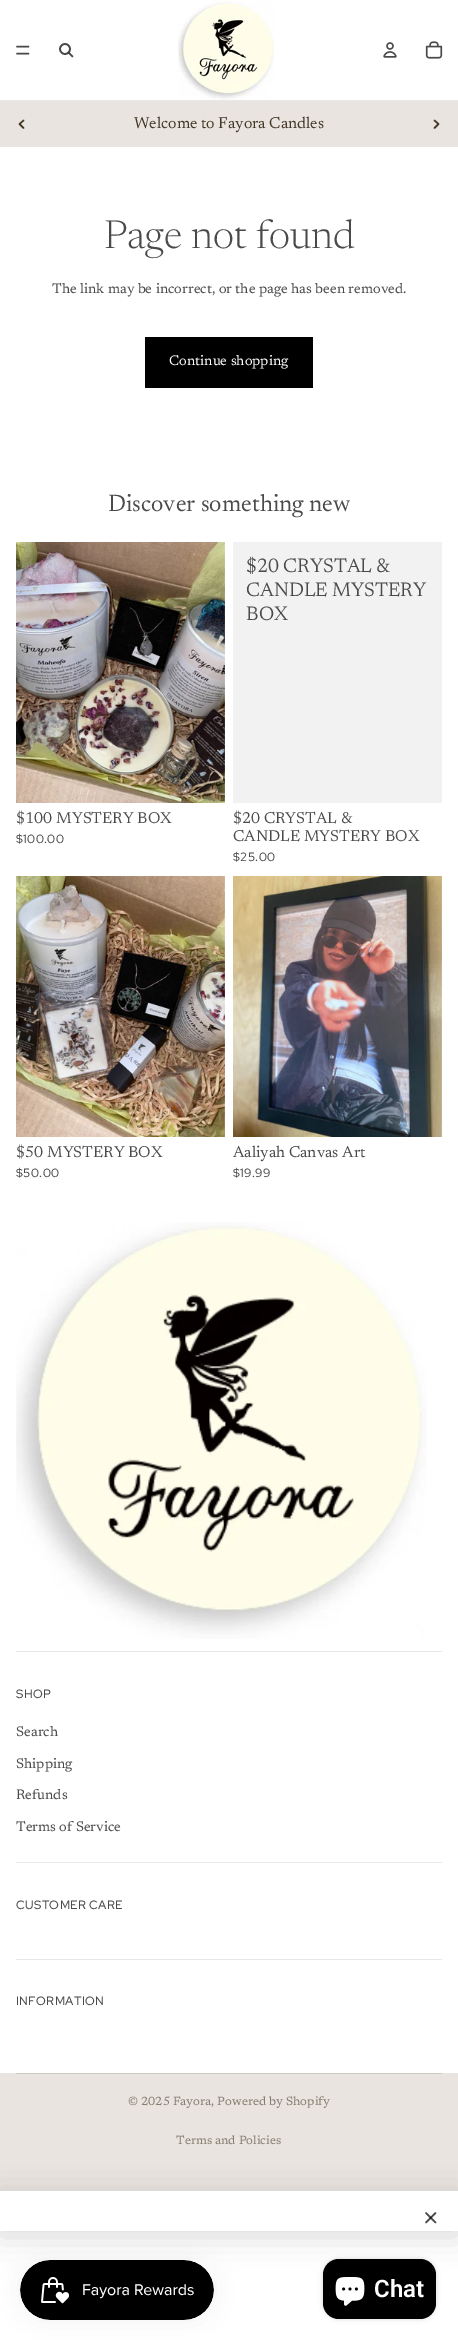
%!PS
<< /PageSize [458 2340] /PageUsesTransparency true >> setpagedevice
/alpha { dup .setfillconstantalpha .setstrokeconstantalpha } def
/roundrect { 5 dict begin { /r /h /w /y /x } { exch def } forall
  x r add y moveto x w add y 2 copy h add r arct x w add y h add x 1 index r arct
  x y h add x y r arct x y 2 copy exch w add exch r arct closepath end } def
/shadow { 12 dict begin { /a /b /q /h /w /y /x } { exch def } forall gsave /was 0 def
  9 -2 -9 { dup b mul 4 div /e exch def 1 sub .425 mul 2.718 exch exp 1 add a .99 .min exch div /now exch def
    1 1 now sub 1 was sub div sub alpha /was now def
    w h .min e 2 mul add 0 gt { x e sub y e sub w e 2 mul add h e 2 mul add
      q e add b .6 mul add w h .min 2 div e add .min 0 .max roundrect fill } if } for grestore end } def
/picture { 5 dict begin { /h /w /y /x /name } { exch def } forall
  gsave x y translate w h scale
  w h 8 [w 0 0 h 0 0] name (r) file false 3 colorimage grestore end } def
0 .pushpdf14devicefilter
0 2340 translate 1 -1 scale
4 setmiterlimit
1 setgray
0 0 458 2340 rectfill
0.918 0.91 0.902 setrgbcolor
0 100 458 1 rectfill
0.29 setgray
1.5 setlinewidth
1 setlinecap
newpath 17 46.5 moveto 28.5 46.5 lineto 17 53.5 moveto 28.5 53.5 lineto stroke
1.7 setlinewidth
0 setlinecap
newpath 65 49 5 0 360 arc closepath stroke
0.71 alpha
0 setgray
1 setlinecap
1 setlinejoin
newpath 69 53 moveto 72.5 56.5 lineto stroke
1 alpha
(img1.rgb) 178 0 96 100 picture
(img2.rgb) 383 42 14 16 picture
(img3.rgb) 425 41 18 18 picture
0.914 0.894 0.878 setrgbcolor
0 101 458 46 rectfill
/Newsreader-Regular [16 0 0 -16 0 0] selectfont
0.263 0.212 0.145 setrgbcolor
134 128 moveto (Welcome to Fayora Candles) show
1.5 setlinewidth
newpath 23.5 120.5 moveto 19.5 124 lineto 23.5 128 lineto stroke
newpath 434.5 120.5 moveto 438.5 124 lineto 434.5 128 lineto stroke
/Newsreader-Light [40 0 0 -40 0 0] selectfont
0.29 setgray
104 248 moveto (Page not found) show
/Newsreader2-Regular [14 0 0 -14 0 0] selectfont
52 293 moveto (The link may be incorrect, or the page has been removed.) show
0 setgray
145 337 168 51 rectfill
1 setgray
169 365 moveto (Continue shopping) show
/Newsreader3-Regular [24 0 0 -24 0 0] selectfont
0.29 setgray
108 511 moveto (Discover something new) show
(img4.rgb) 16 542 209 261 picture
/Newsreader-Regular [16 0 0 -16 0 0] selectfont
16 823 moveto ($100 MYSTERY BOX) show
/RedHatDisplay-Medium [12 0 0 -12 0 0] selectfont
16 843 moveto 0.4 0 ($100.00) ashow
0.949 setgray
233 542 209 261 rectfill
/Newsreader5-Regular [20 0 0 -20 0 0] selectfont
0.29 setgray
246 572 moveto ($20 CRYSTAL &) show
246 596 moveto (CANDLE MYSTERY) show
246 620 moveto (BOX) show
/Newsreader-Regular [16 0 0 -16 0 0] selectfont
233 823 moveto ($20 CRYSTAL &) show
233 841 moveto (CANDLE MYSTERY BOX) show
/RedHatDisplay-Medium [12 0 0 -12 0 0] selectfont
233 861 moveto 0.4 0 ($25.00) ashow
(img5.rgb) 16 876 209 261 picture
/Newsreader-Regular [16 0 0 -16 0 0] selectfont
16 1157 moveto ($50 MYSTERY BOX) show
/RedHatDisplay-Medium [12 0 0 -12 0 0] selectfont
16 1177 moveto 0.4 0 ($50.00) ashow
(img6.rgb) 233 876 209 261 picture
/Newsreader-Regular [16 0 0 -16 0 0] selectfont
233 1157 moveto (Aaliyah Canvas Art) show
/RedHatDisplay-Medium [12 0 0 -12 0 0] selectfont
233 1177 moveto 0.4 0 ($19.99) ashow
(img7.rgb) 16 1222 411 417 picture
0.918 0.91 0.902 setrgbcolor
16 1651 426 1 rectfill
0.29 setgray
16 1698 moveto 0.4 0 (SHOP) ashow
/Newsreader2-Regular [14 0 0 -14 0 0] selectfont
16 1736 moveto (Search) show
16 1768 moveto (Shipping) show
16 1799 moveto (Refunds) show
16 1831 moveto (Terms of Service) show
0.918 0.91 0.902 setrgbcolor
16 1862 426 1 rectfill
/RedHatDisplay-Medium [12 0 0 -12 0 0] selectfont
0.29 setgray
16 1909 moveto 0.4 0 (CUSTOMER CARE) ashow
0.918 0.91 0.902 setrgbcolor
16 1959 426 1 rectfill
0.29 setgray
16 2005 moveto 0.4 0 (INFORMATION) ashow
0.914 0.894 0.878 setrgbcolor
0 2073 458 118 rectfill
0.816 0.792 0.769 setrgbcolor
16 2073 426 1 rectfill
/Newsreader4-Regular [12 0 0 -12 0 0] selectfont
0.522 0.486 0.439 setrgbcolor
128 2105 moveto (© 2025 Fayora, Powered by Shopify) show
176 2144 moveto (Terms and Policies) show
gsave
newpath 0 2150 moveto 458 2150 lineto 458 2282 lineto 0 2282 lineto closepath 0 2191 moveto 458 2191 lineto 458 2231 lineto 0 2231 lineto closepath eoclip newpath
0 setgray
0 2196 458 40 0 15 0.15 shadow
grestore
0.29 setgray
newpath 435.5 2213 moveto 426 2222.5 lineto stroke
0.71 alpha
0 setgray
newpath 435.5 2222.5 moveto 426 2213 lineto stroke
1 alpha
20 2260 194 60 30 12.5 0.05 shadow
(img8.rgb) 20 2260 194 60 picture
323 2259 113 60 16 2.5 0.15 shadow
323 2259 113 60 16 roundrect fill
(img9.rgb) 335 2277 30 29 picture
/Roboto-SemiBold [24 0 0 -24 0 0] selectfont
1 setgray
374 2297 moveto (Chat) show
.poppdf14devicefilter showpage
